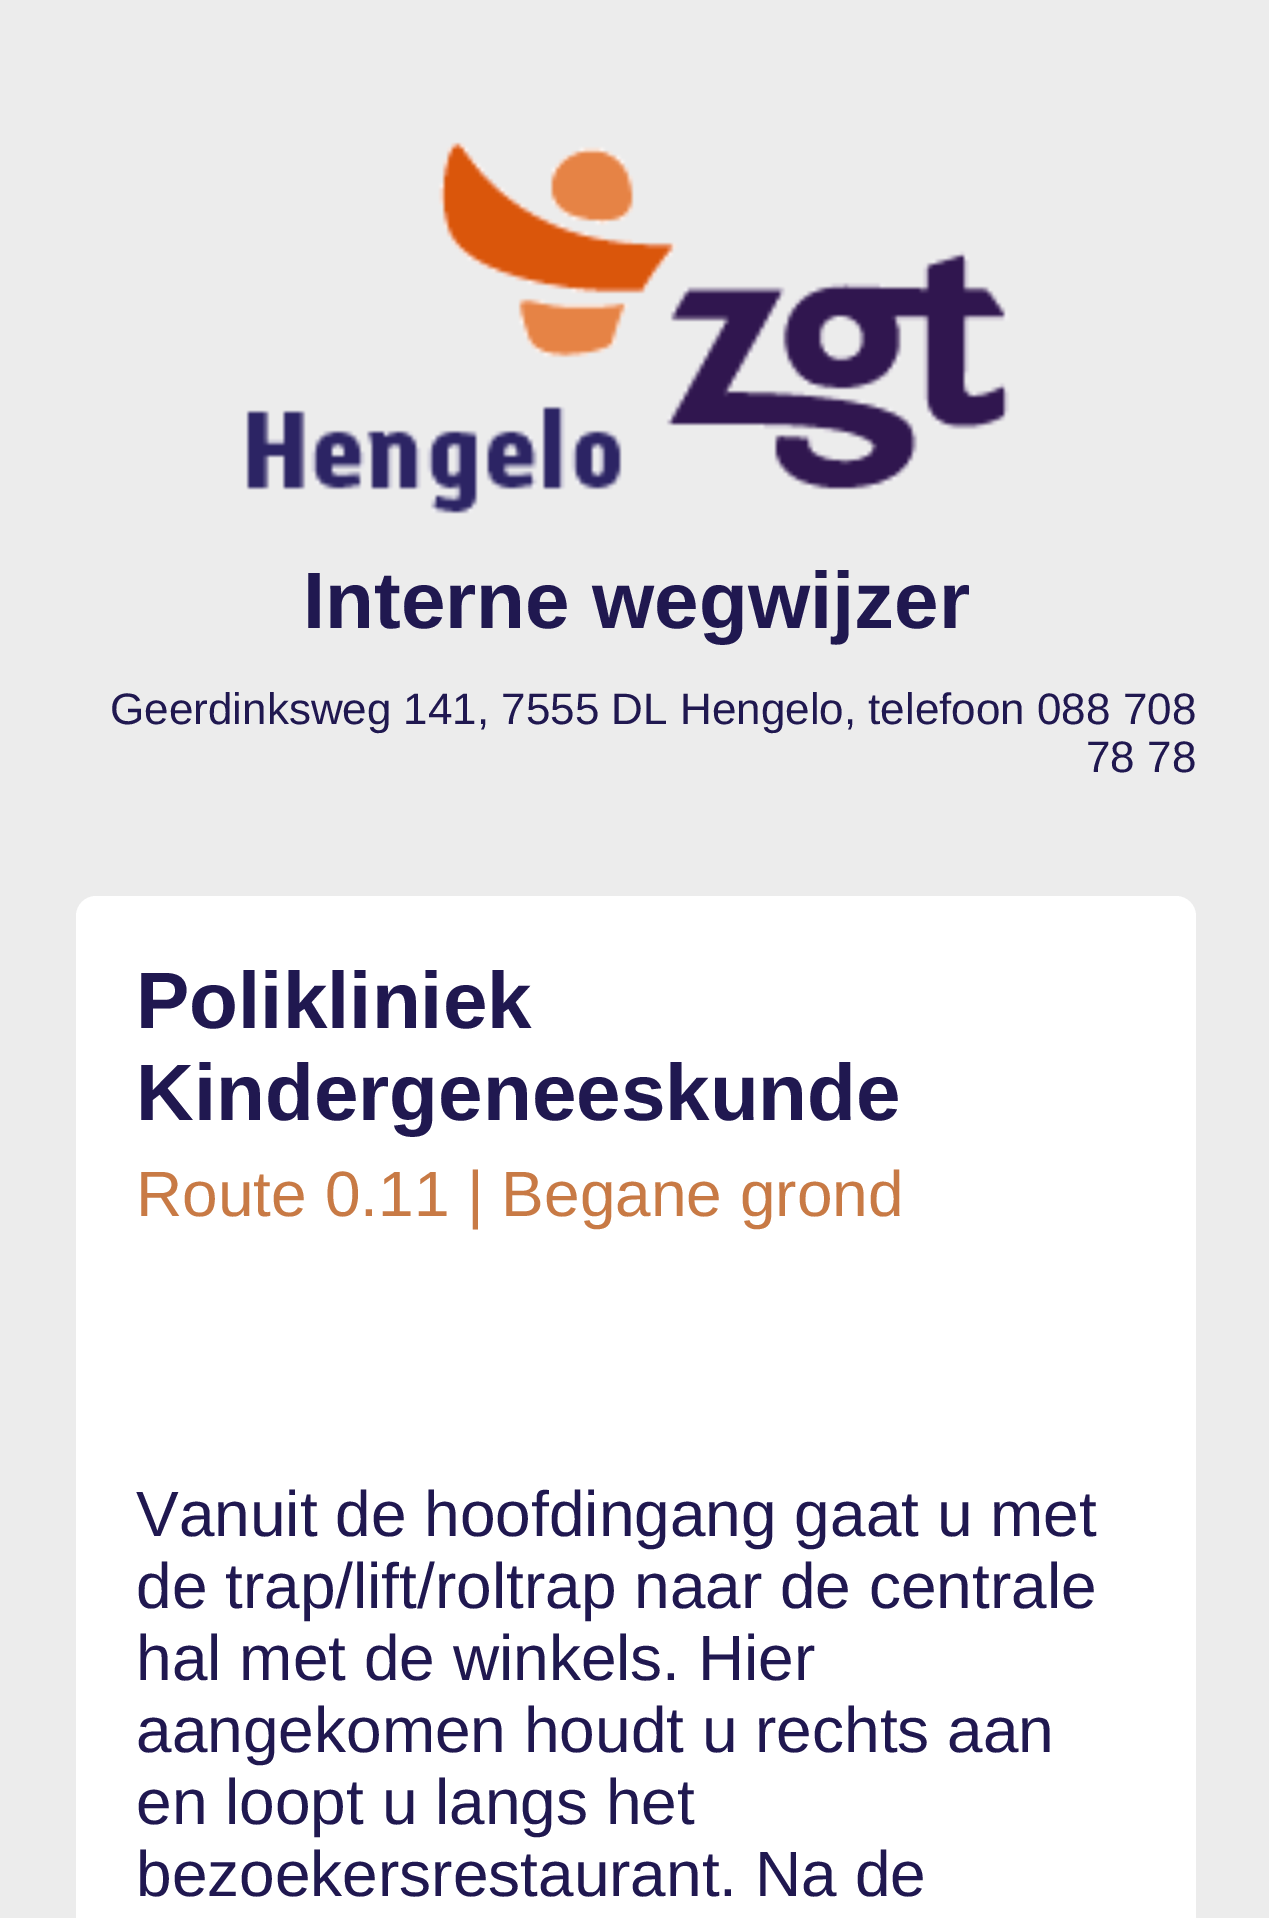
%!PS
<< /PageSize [1269 1918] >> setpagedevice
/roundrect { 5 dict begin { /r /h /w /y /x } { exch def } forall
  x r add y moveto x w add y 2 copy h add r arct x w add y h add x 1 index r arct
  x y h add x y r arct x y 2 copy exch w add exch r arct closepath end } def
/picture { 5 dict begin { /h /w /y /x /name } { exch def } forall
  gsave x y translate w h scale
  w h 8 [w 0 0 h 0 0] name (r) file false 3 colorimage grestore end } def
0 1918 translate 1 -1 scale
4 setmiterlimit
0.925 setgray
0 0 1269 1918 rectfill
(img1.rgb) 246 142 764 372 picture
/LiberationSans-Bold [80 0 0 -80 0 0] selectfont
0.125 0.094 0.314 setrgbcolor
303 628 moveto (Interne wegwijzer) show
/LiberationSans-Regular [44 0 0 -44 0 0] selectfont
110 724 moveto (Geerdinksweg 141, 7555 DL Hengelo, telefoon 088 708) show
1086 772 moveto (78 78) show
1 setgray
76 896 1120 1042 20 roundrect fill
/LiberationSans-Bold [80 0 0 -80 0 0] selectfont
0.125 0.094 0.314 setrgbcolor
136 1028 moveto (Polikliniek) show
136 1120 moveto (Kindergeneeskunde) show
/LiberationSans-Regular [64 0 0 -64 0 0] selectfont
0.784 0.478 0.271 setrgbcolor
136 1216 moveto (Route 0.11 | Begane grond) show
0.125 0.094 0.314 setrgbcolor
136 1536 moveto (Vanuit de hoofdingang gaat u met) show
136 1608 moveto (de trap/lift/roltrap naar de centrale) show
136 1680 moveto (hal met de winkels. Hier) show
136 1752 moveto (aangekomen houdt u rechts aan) show
136 1824 moveto (en loopt u langs het) show
136 1896 moveto (bezoekersrestaurant. Na de) show
showpage
